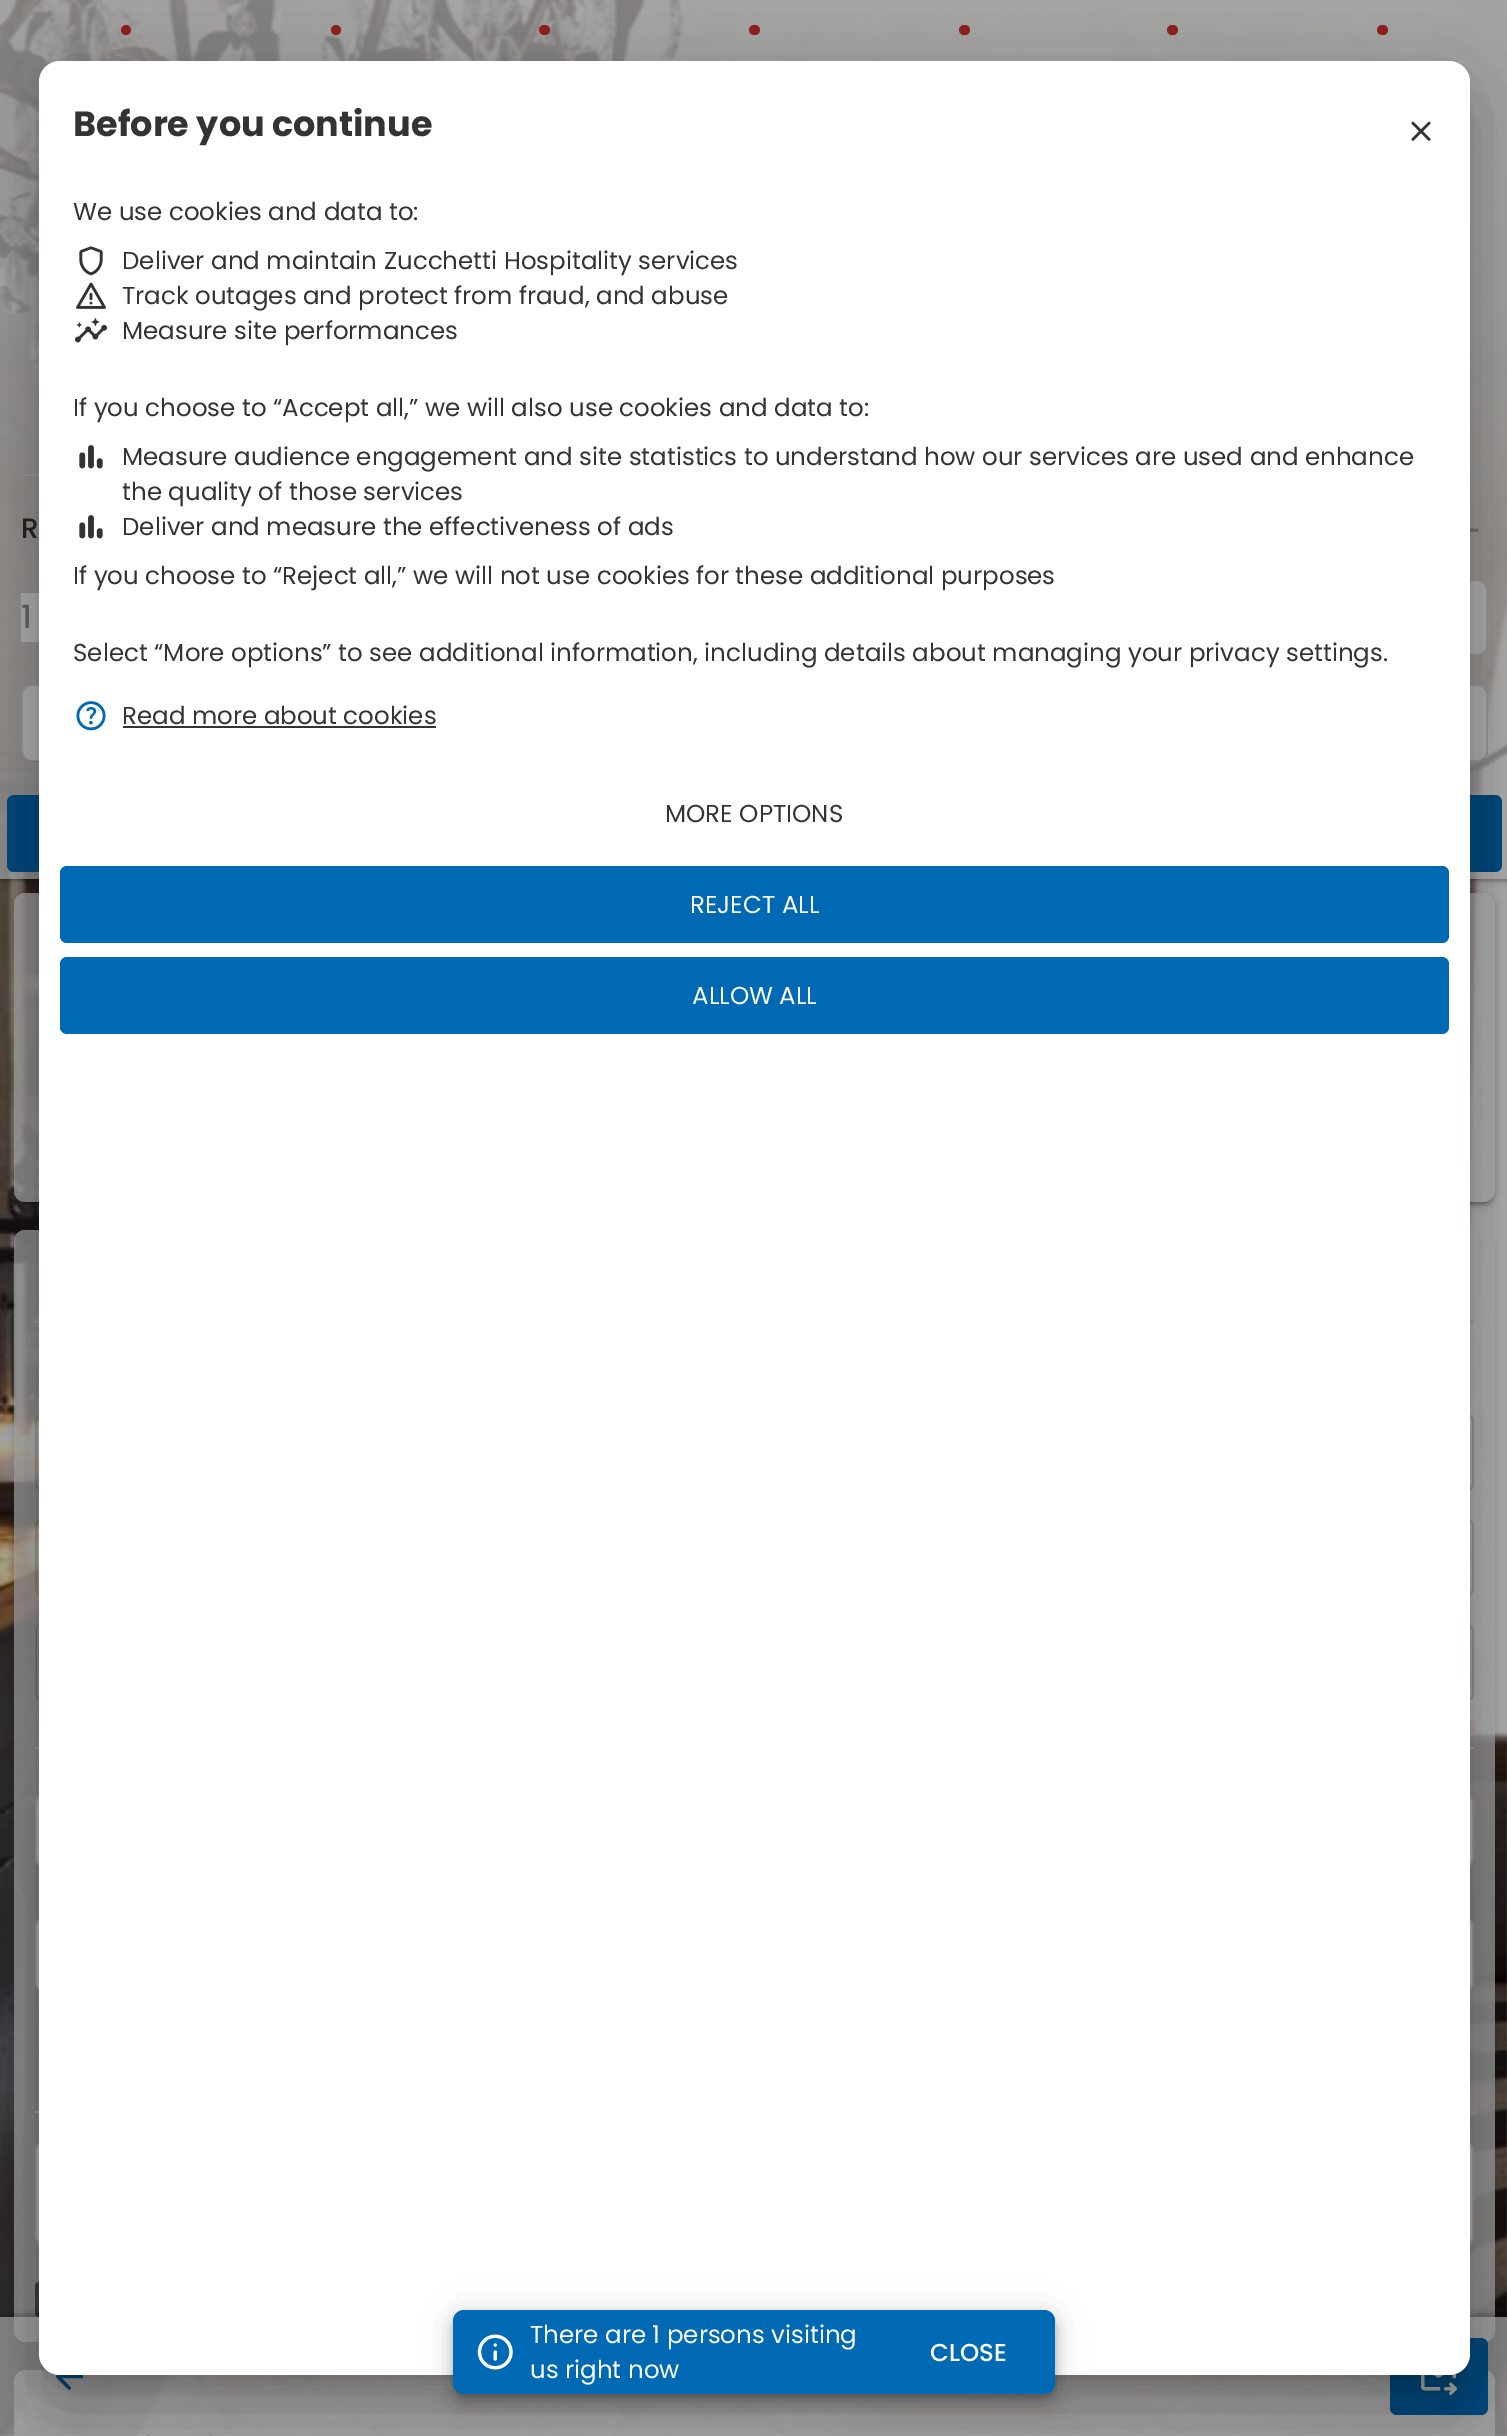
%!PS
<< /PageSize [1507 2436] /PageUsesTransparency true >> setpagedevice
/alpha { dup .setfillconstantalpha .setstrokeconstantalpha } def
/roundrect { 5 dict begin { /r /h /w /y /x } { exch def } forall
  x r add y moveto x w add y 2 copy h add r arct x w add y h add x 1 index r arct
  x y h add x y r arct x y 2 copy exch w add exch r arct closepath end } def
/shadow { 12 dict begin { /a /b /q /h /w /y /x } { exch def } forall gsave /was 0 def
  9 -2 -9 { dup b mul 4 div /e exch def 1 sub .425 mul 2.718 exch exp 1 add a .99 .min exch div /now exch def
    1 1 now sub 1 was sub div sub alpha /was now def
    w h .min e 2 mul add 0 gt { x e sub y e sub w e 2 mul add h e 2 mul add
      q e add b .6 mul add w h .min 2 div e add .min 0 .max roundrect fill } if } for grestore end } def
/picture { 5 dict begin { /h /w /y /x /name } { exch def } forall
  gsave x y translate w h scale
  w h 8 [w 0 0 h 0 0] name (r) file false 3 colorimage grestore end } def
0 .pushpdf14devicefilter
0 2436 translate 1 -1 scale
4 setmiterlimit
0.667 setgray
0 0 1507 2436 rectfill
(img1.rgb) 0 0 1507 2436 picture
gsave
newpath 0 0 moveto 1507 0 lineto 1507 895 lineto 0 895 lineto closepath 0 -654 moveto 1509 -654 lineto 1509 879 lineto 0 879 lineto closepath eoclip newpath
0 setgray
0 -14 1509 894 0 4.5 0.12 shadow
grestore
gsave
newpath 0 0 moveto 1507 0 lineto 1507 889 lineto 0 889 lineto closepath 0 -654 moveto 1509 -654 lineto 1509 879 lineto 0 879 lineto closepath eoclip newpath
0 setgray
0 -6 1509 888 0 2 0.14 shadow
grestore
gsave
newpath 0 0 moveto 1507 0 lineto 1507 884 lineto 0 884 lineto closepath 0 -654 moveto 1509 -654 lineto 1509 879 lineto 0 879 lineto closepath eoclip newpath
0 setgray
4 -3 1501 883 0 1 0.2 shadow
grestore
0.7 alpha
0.678 setgray
0 0 1507 879 rectfill
1 alpha
0.561 0.125 0.125 setrgbcolor
newpath 126 30 5 0 360 arc closepath fill
newpath 336 30 5 0 360 arc closepath fill
539 25 11 10 5 roundrect fill
749 25 11 10 5 roundrect fill
959 25 11 10 5 roundrect fill
1167 25 11 10 5 roundrect fill
1377 25 11 10 5 roundrect fill
0.612 setgray
21 474 1467 2 rectfill
/Poppins-Medium [28 0 0 -28 0 0] selectfont
0.137 setgray
21 538 moveto (R) show
(img2.rgb) 1470 528 9 4 picture
0.678 setgray
21 593 18 49 rectfill
/Poppins-Medium [32 0 0 -32 0 0] selectfont
0.388 setgray
21 628 moveto (1) show
0.678 setgray
newpath 894 579 moveto 1477 579 lineto 1483 579 1488 584 1488 590 curveto 1488 645 lineto 1488 651 1483 656 1477 656 curveto 894 656 lineto closepath fill
0.12 alpha
0 setgray
newpath 894 579 moveto 1477 579 lineto 1483 579 1488 584 1488 590 curveto 1488 646 lineto 1488 652 1483 656 1477 656 curveto 894 656 lineto closepath 894 581 moveto 1477 581 lineto 1482 581 1486 585 1486 590 curveto 1486 646 lineto 1486 651 1482 654 1477 654 curveto 894 654 lineto closepath eofill
1 alpha
0.678 setgray
newpath 32 684 moveto 32 761 lineto 26 761 21 756 21 750 curveto 21 695 lineto 21 689 26 684 32 684 curveto closepath fill
0.12 alpha
0 setgray
newpath 32 684 moveto 32 761 lineto 26 761 21 757 21 751 curveto 21 695 lineto 21 689 26 684 32 684 curveto closepath 32 686 moveto 32 760 lineto 27 760 23 756 23 751 curveto 23 695 lineto 23 690 27 686 32 686 curveto closepath eofill
1 alpha
0.678 setgray
32 686 7 75 rectfill
0.596 setgray
32 684 7 2 rectfill
0.12 alpha
0 setgray
32 760 7 2 rectfill
1 alpha
0.678 setgray
newpath 212 684 moveto 1477 684 lineto 1483 684 1488 689 1488 695 curveto 1488 750 lineto 1488 756 1483 761 1477 761 curveto 212 761 lineto closepath fill
0.12 alpha
0 setgray
newpath 212 684 moveto 1477 684 lineto 1483 684 1488 689 1488 695 curveto 1488 751 lineto 1488 757 1483 761 1477 761 curveto 212 761 lineto closepath 212 686 moveto 1477 686 lineto 1482 686 1486 690 1486 695 curveto 1486 751 lineto 1486 756 1482 760 1477 760 curveto 212 760 lineto closepath eofill
1 alpha
0 0.278 0.478 setrgbcolor
7 795 1495 77 7 roundrect fill
gsave
newpath 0 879 moveto 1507 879 lineto 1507 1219 lineto 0 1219 lineto closepath 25 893 moveto 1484 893 lineto 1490 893 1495 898 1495 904 curveto 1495 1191 lineto 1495 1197 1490 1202 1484 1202 curveto 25 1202 lineto 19 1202 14 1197 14 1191 curveto 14 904 lineto 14 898 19 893 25 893 curveto closepath eoclip newpath
0 setgray
14 894 1481 310 11 4.5 0.12 shadow
grestore
gsave
newpath 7 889 moveto 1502 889 lineto 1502 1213 lineto 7 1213 lineto closepath 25 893 moveto 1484 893 lineto 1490 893 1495 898 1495 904 curveto 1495 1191 lineto 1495 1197 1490 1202 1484 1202 curveto 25 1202 lineto 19 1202 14 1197 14 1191 curveto 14 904 lineto 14 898 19 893 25 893 curveto closepath eoclip newpath
0 setgray
14 896 1481 310 11 2 0.14 shadow
grestore
gsave
newpath 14 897 moveto 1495 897 lineto 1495 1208 lineto 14 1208 lineto closepath 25 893 moveto 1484 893 lineto 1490 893 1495 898 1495 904 curveto 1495 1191 lineto 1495 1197 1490 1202 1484 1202 curveto 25 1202 lineto 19 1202 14 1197 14 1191 curveto 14 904 lineto 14 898 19 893 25 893 curveto closepath eoclip newpath
0 setgray
18 901 1473 303 7 1 0.2 shadow
grestore
0.7 alpha
0.678 setgray
14 893 1481 309 11 roundrect fill
1 alpha
0.612 setgray
35 984 1439 2 rectfill
gsave
newpath 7 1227 moveto 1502 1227 lineto 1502 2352 lineto 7 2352 lineto closepath 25 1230 moveto 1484 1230 lineto 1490 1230 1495 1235 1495 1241 curveto 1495 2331 lineto 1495 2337 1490 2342 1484 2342 curveto 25 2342 lineto 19 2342 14 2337 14 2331 curveto 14 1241 lineto 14 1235 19 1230 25 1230 curveto closepath eoclip newpath
0 setgray
14 1234 1481 1111 11 2 0.14 shadow
grestore
gsave
newpath 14 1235 moveto 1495 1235 lineto 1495 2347 lineto 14 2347 lineto closepath 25 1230 moveto 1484 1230 lineto 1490 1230 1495 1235 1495 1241 curveto 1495 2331 lineto 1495 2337 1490 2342 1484 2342 curveto 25 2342 lineto 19 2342 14 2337 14 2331 curveto 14 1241 lineto 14 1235 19 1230 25 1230 curveto closepath eoclip newpath
0 setgray
18 1239 1473 1104 7 1 0.2 shadow
grestore
0.7 alpha
0.678 setgray
14 1230 1481 1112 11 roundrect fill
1 alpha
0.612 setgray
35 1321 1439 2 rectfill
0.12 alpha
0 setgray
2 setlinewidth
36 1415 1437 75 6 roundrect stroke
36 1520 1437 75 6 roundrect stroke
36 1625 1437 75 6 roundrect stroke
1 alpha
0.612 setgray
35 1747 1439 2 rectfill
0.678 setgray
newpath 46 1792 moveto 46 1869 lineto 40 1869 35 1864 35 1858 curveto 35 1803 lineto 35 1797 40 1792 46 1792 curveto closepath fill
0.12 alpha
0 setgray
newpath 46 1792 moveto 46 1869 lineto 40 1869 35 1864 35 1858 curveto 35 1802 lineto 35 1797 40 1792 46 1792 curveto closepath 46 1794 moveto 46 1867 lineto 41 1867 37 1863 37 1858 curveto 37 1802 lineto 37 1798 41 1794 46 1794 curveto closepath eofill
1 alpha
0.678 setgray
newpath 894 1792 moveto 1463 1792 lineto 1469 1792 1474 1797 1474 1803 curveto 1474 1858 lineto 1474 1864 1469 1869 1463 1869 curveto 894 1869 lineto closepath fill
0.12 alpha
0 setgray
newpath 894 1792 moveto 1463 1792 lineto 1469 1792 1474 1797 1474 1802 curveto 1474 1858 lineto 1474 1864 1469 1869 1463 1869 curveto 894 1869 lineto closepath 894 1794 moveto 1463 1794 lineto 1468 1794 1472 1798 1472 1802 curveto 1472 1858 lineto 1472 1863 1468 1867 1463 1867 curveto 894 1867 lineto closepath eofill
1 alpha
0.678 setgray
newpath 46 1916 moveto 46 1993 lineto 40 1993 35 1988 35 1982 curveto 35 1927 lineto 35 1921 40 1916 46 1916 curveto closepath fill
0.12 alpha
0 setgray
newpath 46 1916 moveto 46 1993 lineto 40 1993 35 1989 35 1983 curveto 35 1927 lineto 35 1921 40 1916 46 1916 curveto closepath 46 1918 moveto 46 1992 lineto 41 1992 37 1988 37 1983 curveto 37 1927 lineto 37 1922 41 1918 46 1918 curveto closepath eofill
1 alpha
0.678 setgray
newpath 907 1916 moveto 1463 1916 lineto 1469 1916 1474 1921 1474 1927 curveto 1474 1982 lineto 1474 1988 1469 1993 1463 1993 curveto 907 1993 lineto closepath fill
0.12 alpha
0 setgray
newpath 906 1916 moveto 1463 1916 lineto 1469 1916 1474 1921 1474 1927 curveto 1474 1983 lineto 1474 1989 1469 1993 1463 1993 curveto 906 1993 lineto closepath 906 1918 moveto 1463 1918 lineto 1468 1918 1472 1922 1472 1927 curveto 1472 1983 lineto 1472 1988 1468 1992 1463 1992 curveto 906 1992 lineto closepath eofill
1 alpha
0.612 setgray
35 2111 1439 2 rectfill
0.678 setgray
newpath 46 2140 moveto 46 2247 lineto 40 2247 35 2242 35 2236 curveto 35 2151 lineto 35 2145 40 2140 46 2140 curveto closepath fill
0.12 alpha
0 setgray
newpath 46 2140 moveto 46 2247 lineto 40 2247 35 2242 35 2236 curveto 35 2151 lineto 35 2145 40 2140 46 2140 curveto closepath 46 2142 moveto 46 2245 lineto 41 2245 37 2241 37 2236 curveto 37 2151 lineto 37 2146 41 2142 46 2142 curveto closepath eofill
1 alpha
0.678 setgray
newpath 242 2140 moveto 1463 2140 lineto 1469 2140 1474 2145 1474 2151 curveto 1474 2236 lineto 1474 2242 1469 2247 1463 2247 curveto 242 2247 lineto closepath fill
0.12 alpha
0 setgray
newpath 242 2140 moveto 1463 2140 lineto 1469 2140 1474 2145 1474 2151 curveto 1474 2236 lineto 1474 2242 1469 2247 1463 2247 curveto 242 2247 lineto closepath 242 2142 moveto 1463 2142 lineto 1468 2142 1472 2146 1472 2151 curveto 1472 2236 lineto 1472 2241 1468 2245 1463 2245 curveto 242 2245 lineto closepath eofill
0.54 alpha
4 setlinewidth
37 2284 31 31 2 roundrect stroke
0.7 alpha
0.678 setgray
14 2370 1481 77 11 roundrect fill
1 alpha
(img5.rgb) 147 2435 4 1 picture
(img6.rgb) 209 2435 4 1 picture
gsave
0 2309 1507 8 rectclip
0 setgray
0 2314 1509 119 0 3.5 0.25 shadow
grestore
0.7 alpha
0 2317 1507 119 rectfill
1 alpha
(img3.rgb) 56 2374 28 16 picture
0 0.278 0.478 setrgbcolor
1390 2338 98 77 7 roundrect fill
(img4.rgb) 1421 2373 36 22 picture
0 setgray
25 63 1459 2342 35 40 0.12 shadow
33 98 1442 2324 26 33 0.14 shadow
51 93 1407 2289 9 13 0.2 shadow
1 setgray
39 61 1431 2314 21 roundrect fill
/Poppins-Bold [35 0 0 -35 0 0] selectfont
0.2 setgray
73 136 moveto (Before you continue) show
(img7.rgb) 1411 121 20 20 picture
/Poppins-Regular [24.5 0 0 -24.5 0 0] selectfont
73 220 moveto (We use cookies and data to:) show
(img8.rgb) 79 246 24 30 picture
122 269 moveto (Deliver and maintain Zucchetti Hospitality services) show
(img9.rgb) 76 282 30 27 picture
122 304 moveto (Track outages and protect from fraud, and abuse) show
(img10.rgb) 75 317 32 26 picture
122 339 moveto (Measure site performances) show
73 416 moveto (If you choose to “Accept all,” we will also use cookies and data to:) show
(img11.rgb) 79 445 24 24 picture
122 465 moveto (Measure audience engagement and site statistics to understand how our services are used and enhance) show
122 500 moveto (the quality of those services) show
(img11.rgb) 79 515 24 24 picture
122 535 moveto (Deliver and measure the effectiveness of ads) show
73 584 moveto (If you choose to “Reject all,” we will not use cookies for these additional purposes) show
73 661 moveto (Select “More options” to see additional information, including details about managing your privacy settings.) show
(img12.rgb) 76 701 30 30 picture
122 724 moveto (Read more about cookies) show
123 726 313 2 rectfill
665 822 moveto (MORE OPTIONS) show
0 0.412 0.702 setrgbcolor
60 866 1389 77 7 roundrect fill
1 setgray
690 913 moveto (REJECT ALL) show
0 0.412 0.702 setrgbcolor
60 957 1389 77 7 roundrect fill
1 setgray
692 1004 moveto (ALLOW ALL) show
0 setgray
453 2312 602 84 11 16 0.12 shadow
453 2321 602 84 11 9 0.14 shadow
455 2317 599 81 9 4.5 0.2 shadow
0 0.412 0.702 setrgbcolor
453 2310 602 84 11 roundrect fill
(img13.rgb) 477 2334 36 36 picture
1 setgray
530 2343 moveto (There are 1 persons visiting) show
530 2378 moveto (us right now) show
/Poppins-Medium [24.5 0 0 -24.5 0 0] selectfont
930 2361 moveto (CLOSE) show
.poppdf14devicefilter showpage
